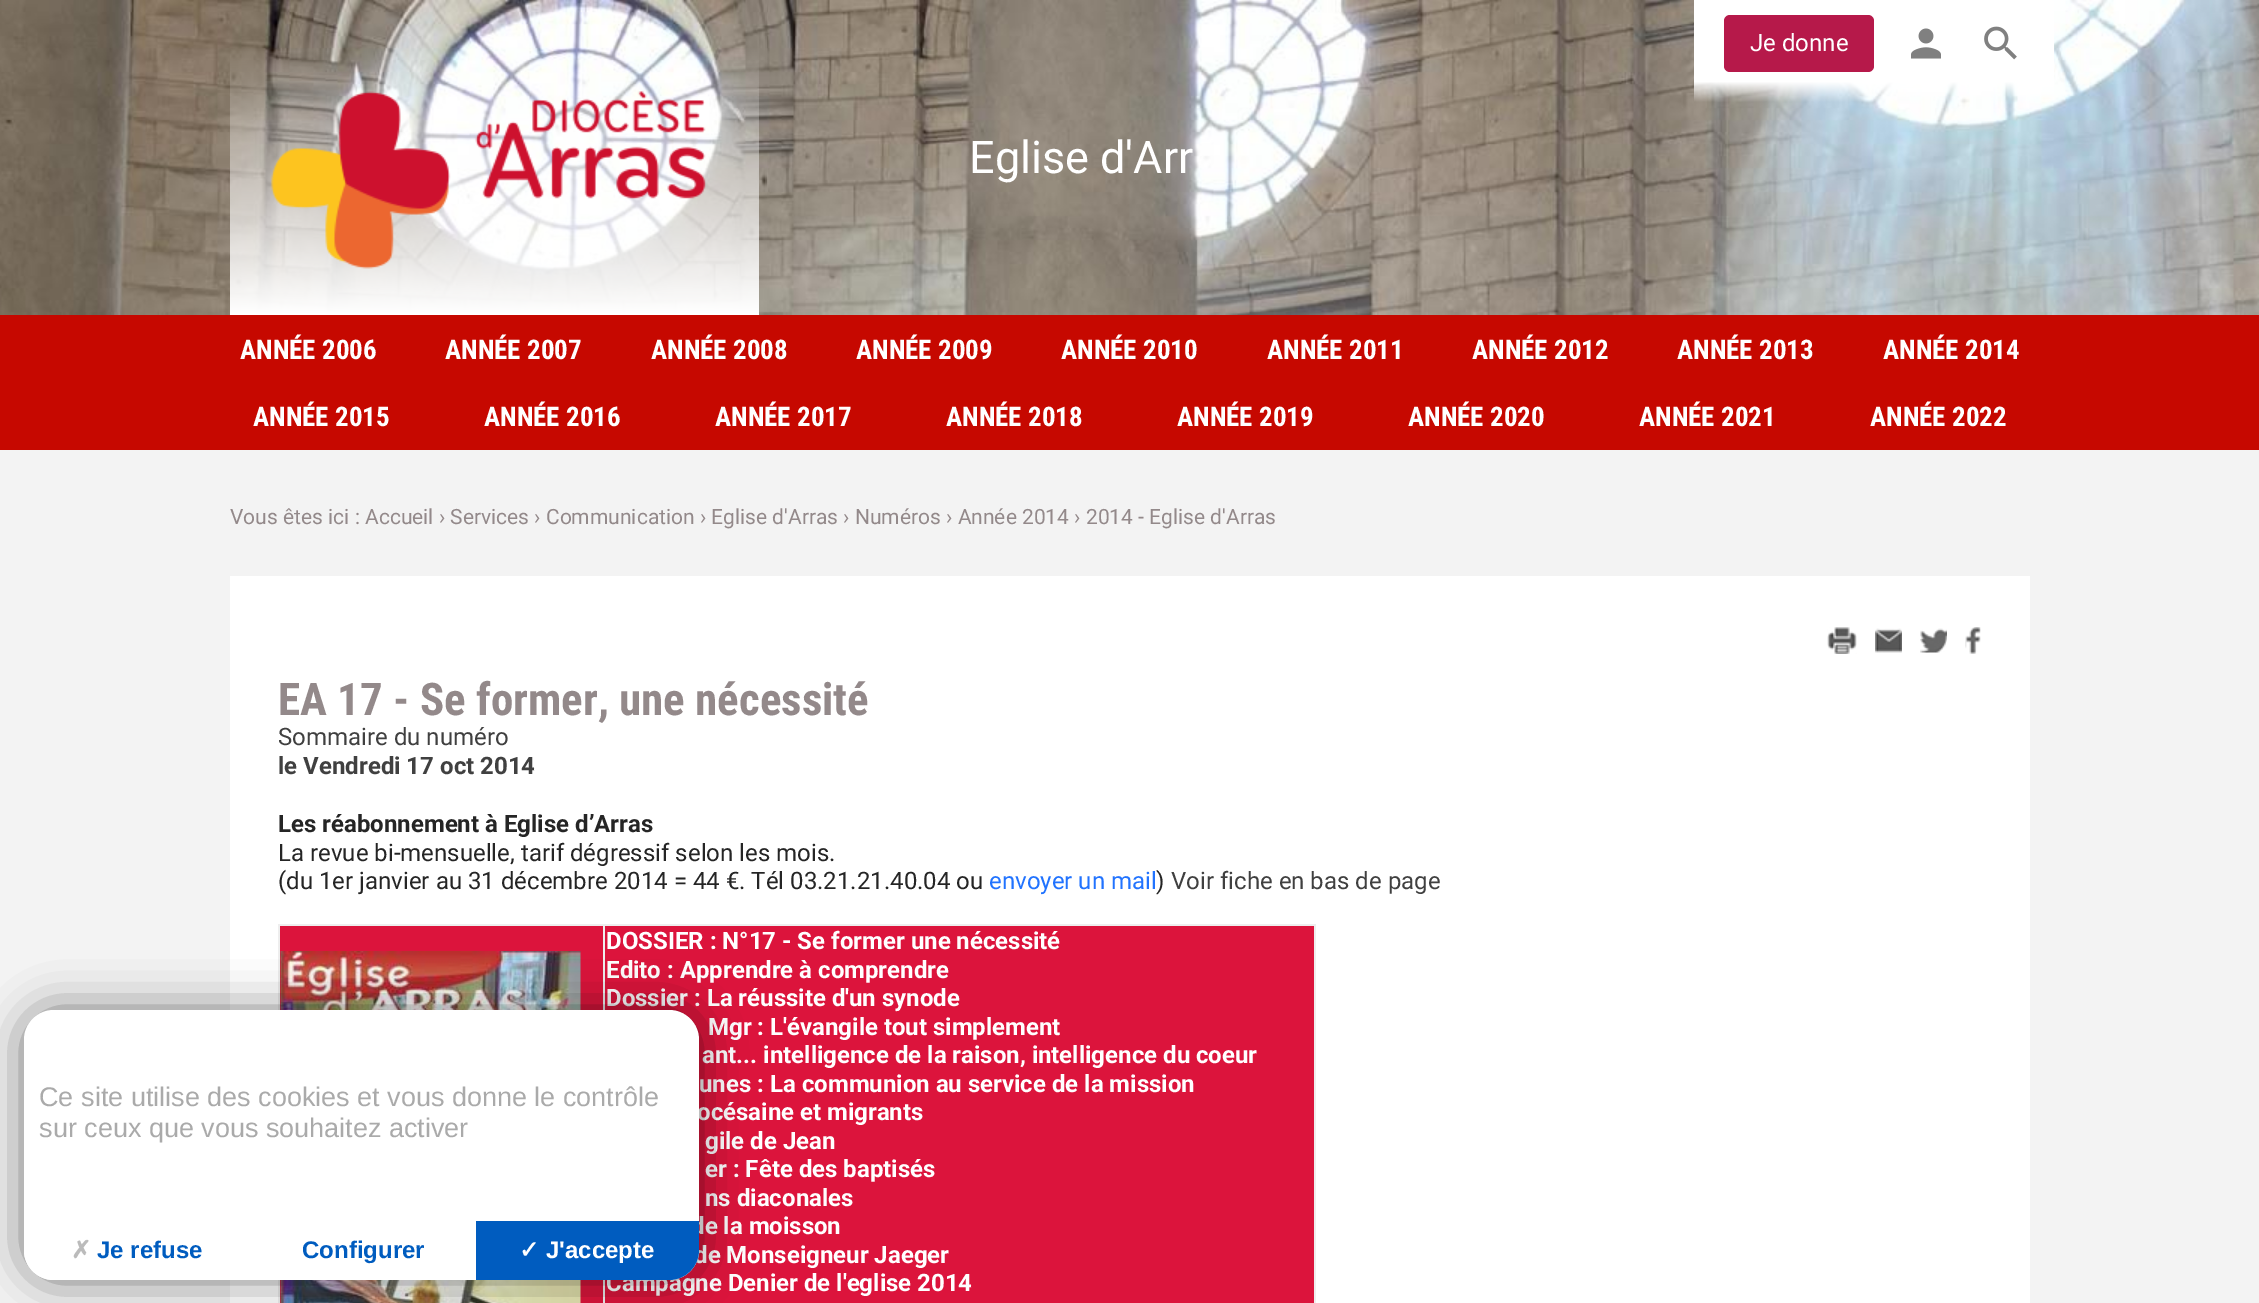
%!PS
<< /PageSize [2259 1303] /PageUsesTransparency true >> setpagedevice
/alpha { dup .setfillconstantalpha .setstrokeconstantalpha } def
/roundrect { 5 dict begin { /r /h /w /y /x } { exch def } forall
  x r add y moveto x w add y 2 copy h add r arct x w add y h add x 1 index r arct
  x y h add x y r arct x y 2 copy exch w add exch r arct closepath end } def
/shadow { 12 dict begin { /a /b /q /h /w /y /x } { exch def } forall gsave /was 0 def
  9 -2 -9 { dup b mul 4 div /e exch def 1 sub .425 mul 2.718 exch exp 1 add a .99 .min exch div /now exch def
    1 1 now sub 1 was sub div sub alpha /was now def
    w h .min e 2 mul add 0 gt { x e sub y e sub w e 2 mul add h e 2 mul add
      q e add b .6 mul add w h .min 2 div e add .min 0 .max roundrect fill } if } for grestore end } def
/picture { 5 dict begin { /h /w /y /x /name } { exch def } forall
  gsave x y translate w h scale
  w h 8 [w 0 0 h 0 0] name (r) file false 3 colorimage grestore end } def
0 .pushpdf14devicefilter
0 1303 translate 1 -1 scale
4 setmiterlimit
0.953 setgray
0 0 2259 1303 rectfill
(img1.rgb) 0 0 2259 315 picture
0.714 0.098 0.29 setrgbcolor
1724 15 150 57 6 roundrect fill
/Roboto-Regular [24 0 0 -24 0 0] selectfont
1 setgray
1750 51 moveto (Je donne) show
(img2.rgb) 1911 28 30 31 picture
(img3.rgb) 1984 26 33 34 picture
(img4.rgb) 271 91 435 178 picture
/Roboto-Regular [45 0 0 -45 0 0] selectfont
969 173 moveto (Eglise d'Arr) show
0.776 0.031 0 setrgbcolor
0 315 2259 135 rectfill
/RobotoCondensed-Bold [27 0 0 -27 0 0] selectfont
1 setgray
240 359 moveto (ANNÉE 2006) show
445 359 moveto (ANNÉE 2007) show
651 359 moveto (ANNÉE 2008) show
856 359 moveto (ANNÉE 2009) show
1061 359 moveto (ANNÉE 2010) show
1267 359 moveto (ANNÉE 2011) show
1472 359 moveto (ANNÉE 2012) show
1677 359 moveto (ANNÉE 2013) show
1883 359 moveto (ANNÉE 2014) show
253 426 moveto (ANNÉE 2015) show
484 426 moveto (ANNÉE 2016) show
715 426 moveto (ANNÉE 2017) show
946 426 moveto (ANNÉE 2018) show
1177 426 moveto (ANNÉE 2019) show
1408 426 moveto (ANNÉE 2020) show
1639 426 moveto (ANNÉE 2021) show
1870 426 moveto (ANNÉE 2022) show
/Roboto-Regular [21 0 0 -21 0 0] selectfont
0.576 0.537 0.541 setrgbcolor
230 524 moveto (Vous êtes ici : Accueil › Services › Communication › Eglise d'Arras › Numéros › Année 2014 › 2014 - Eglise d'Arras) show
1 setgray
230 576 1800 727 rectfill
(img5.rgb) 1827 627 30 27 picture
(img6.rgb) 1875 628 27 25 picture
(img7.rgb) 1920 628 27 25 picture
(img8.rgb) 1965 627 16 27 picture
/RobotoCondensed-Bold [45 0 0 -45 0 0] selectfont
0.576 0.537 0.541 setrgbcolor
278 715 moveto (EA 17 - Se former, une nécessité) show
/Roboto-Regular [24 0 0 -24 0 0] selectfont
0.251 setgray
278 745 moveto (Sommaire du numéro) show
/Roboto-Bold [24 0 0 -24 0 0] selectfont
278 774 moveto (le Vendredi 17 oct 2014) show
0.145 setgray
278 832 moveto (Les réabonnement à Eglise d’Arras) show
/Roboto-Regular [24 0 0 -24 0 0] selectfont
278 861 moveto (La revue bi-mensuelle, tarif dégressif selon les mois.) show
278 889 moveto (\(du 1er janvier au 31 décembre 2014 = 44 €. Tél 03.21.21.40.04 ou) show
0.129 0.451 1 setrgbcolor
989 889 moveto (envoyer un mail) show
0.145 setgray
1156 889 moveto (\)) show
0.251 setgray
1171 889 moveto (Voir fiche en bas de page) show
0.863 0.078 0.235 setrgbcolor
280 926 1034 377 rectfill
0.933 setgray
603 924 713 2 rectfill
603 924 2 379 rectfill
278 924 327 2 rectfill
278 924 2 379 rectfill
(img9.rgb) 280 951 301 352 picture
1314 924 2 379 rectfill
/Roboto-Bold [24 0 0 -24 0 0] selectfont
1 setgray
606 949 moveto (DOSSIER : N°17 - Se former une nécessité) show
606 978 moveto (Edito : Apprendre à comprendre) show
606 1006 moveto (Dossier : La réussite d'un synode) show
708 1035 moveto (Mgr : L'évangile tout simplement) show
702 1063 moveto (ant... intelligence de la raison, intelligence du coeur) show
699 1092 moveto (unes : La communion au service de la mission) show
697 1120 moveto (océsaine et migrants) show
705 1149 moveto (gile de Jean) show
705 1177 moveto (er : Fête des baptisés) show
705 1206 moveto (ns diaconales) show
691 1234 moveto (de la moisson) show
694 1263 moveto (de Monseigneur Jaeger) show
606 1291 moveto (Campagne Denier de l'eglise 2014) show
0 setgray
24 1010 675 270 30 22.5 0.5 shadow
1 setgray
24 1010 675 270 30 roundrect fill
/LiberationSans-Regular [27 0 0 -27 0 0] selectfont
0.667 setgray
39 1106 moveto (Ce site utilise des cookies et vous donne le contrôle) show
39 1137 moveto (sur ceux que vous souhaitez activer) show
1 setgray
newpath 24 1221 moveto 249 1221 lineto 249 1280 lineto 54 1280 lineto 37.5 1280 24 1266.5 24 1250 curveto closepath fill
/DejaVuSans-Bold [24 0 0 -24 0 0] selectfont
0.733 setgray
71 1258 moveto (✗) show
/LiberationSans-Bold [24 0 0 -24 0 0] selectfont
0 0.361 0.749 setrgbcolor
97 1258 moveto (Je refuse) show
newpath 474 1221 moveto 699 1221 lineto 699 1250 lineto 699 1266.5 685.5 1280 669 1280 curveto 474 1280 lineto closepath fill
1 setgray
474 1221 2 59 rectfill
0 0.361 0.749 setrgbcolor
302 1258 moveto (Configurer) show
/DejaVuSans-Bold [24 0 0 -24 0 0] selectfont
1 setgray
519 1258 moveto (✓) show
/LiberationSans-Bold [24 0 0 -24 0 0] selectfont
546 1258 moveto (J'accepte) show
.poppdf14devicefilter showpage
